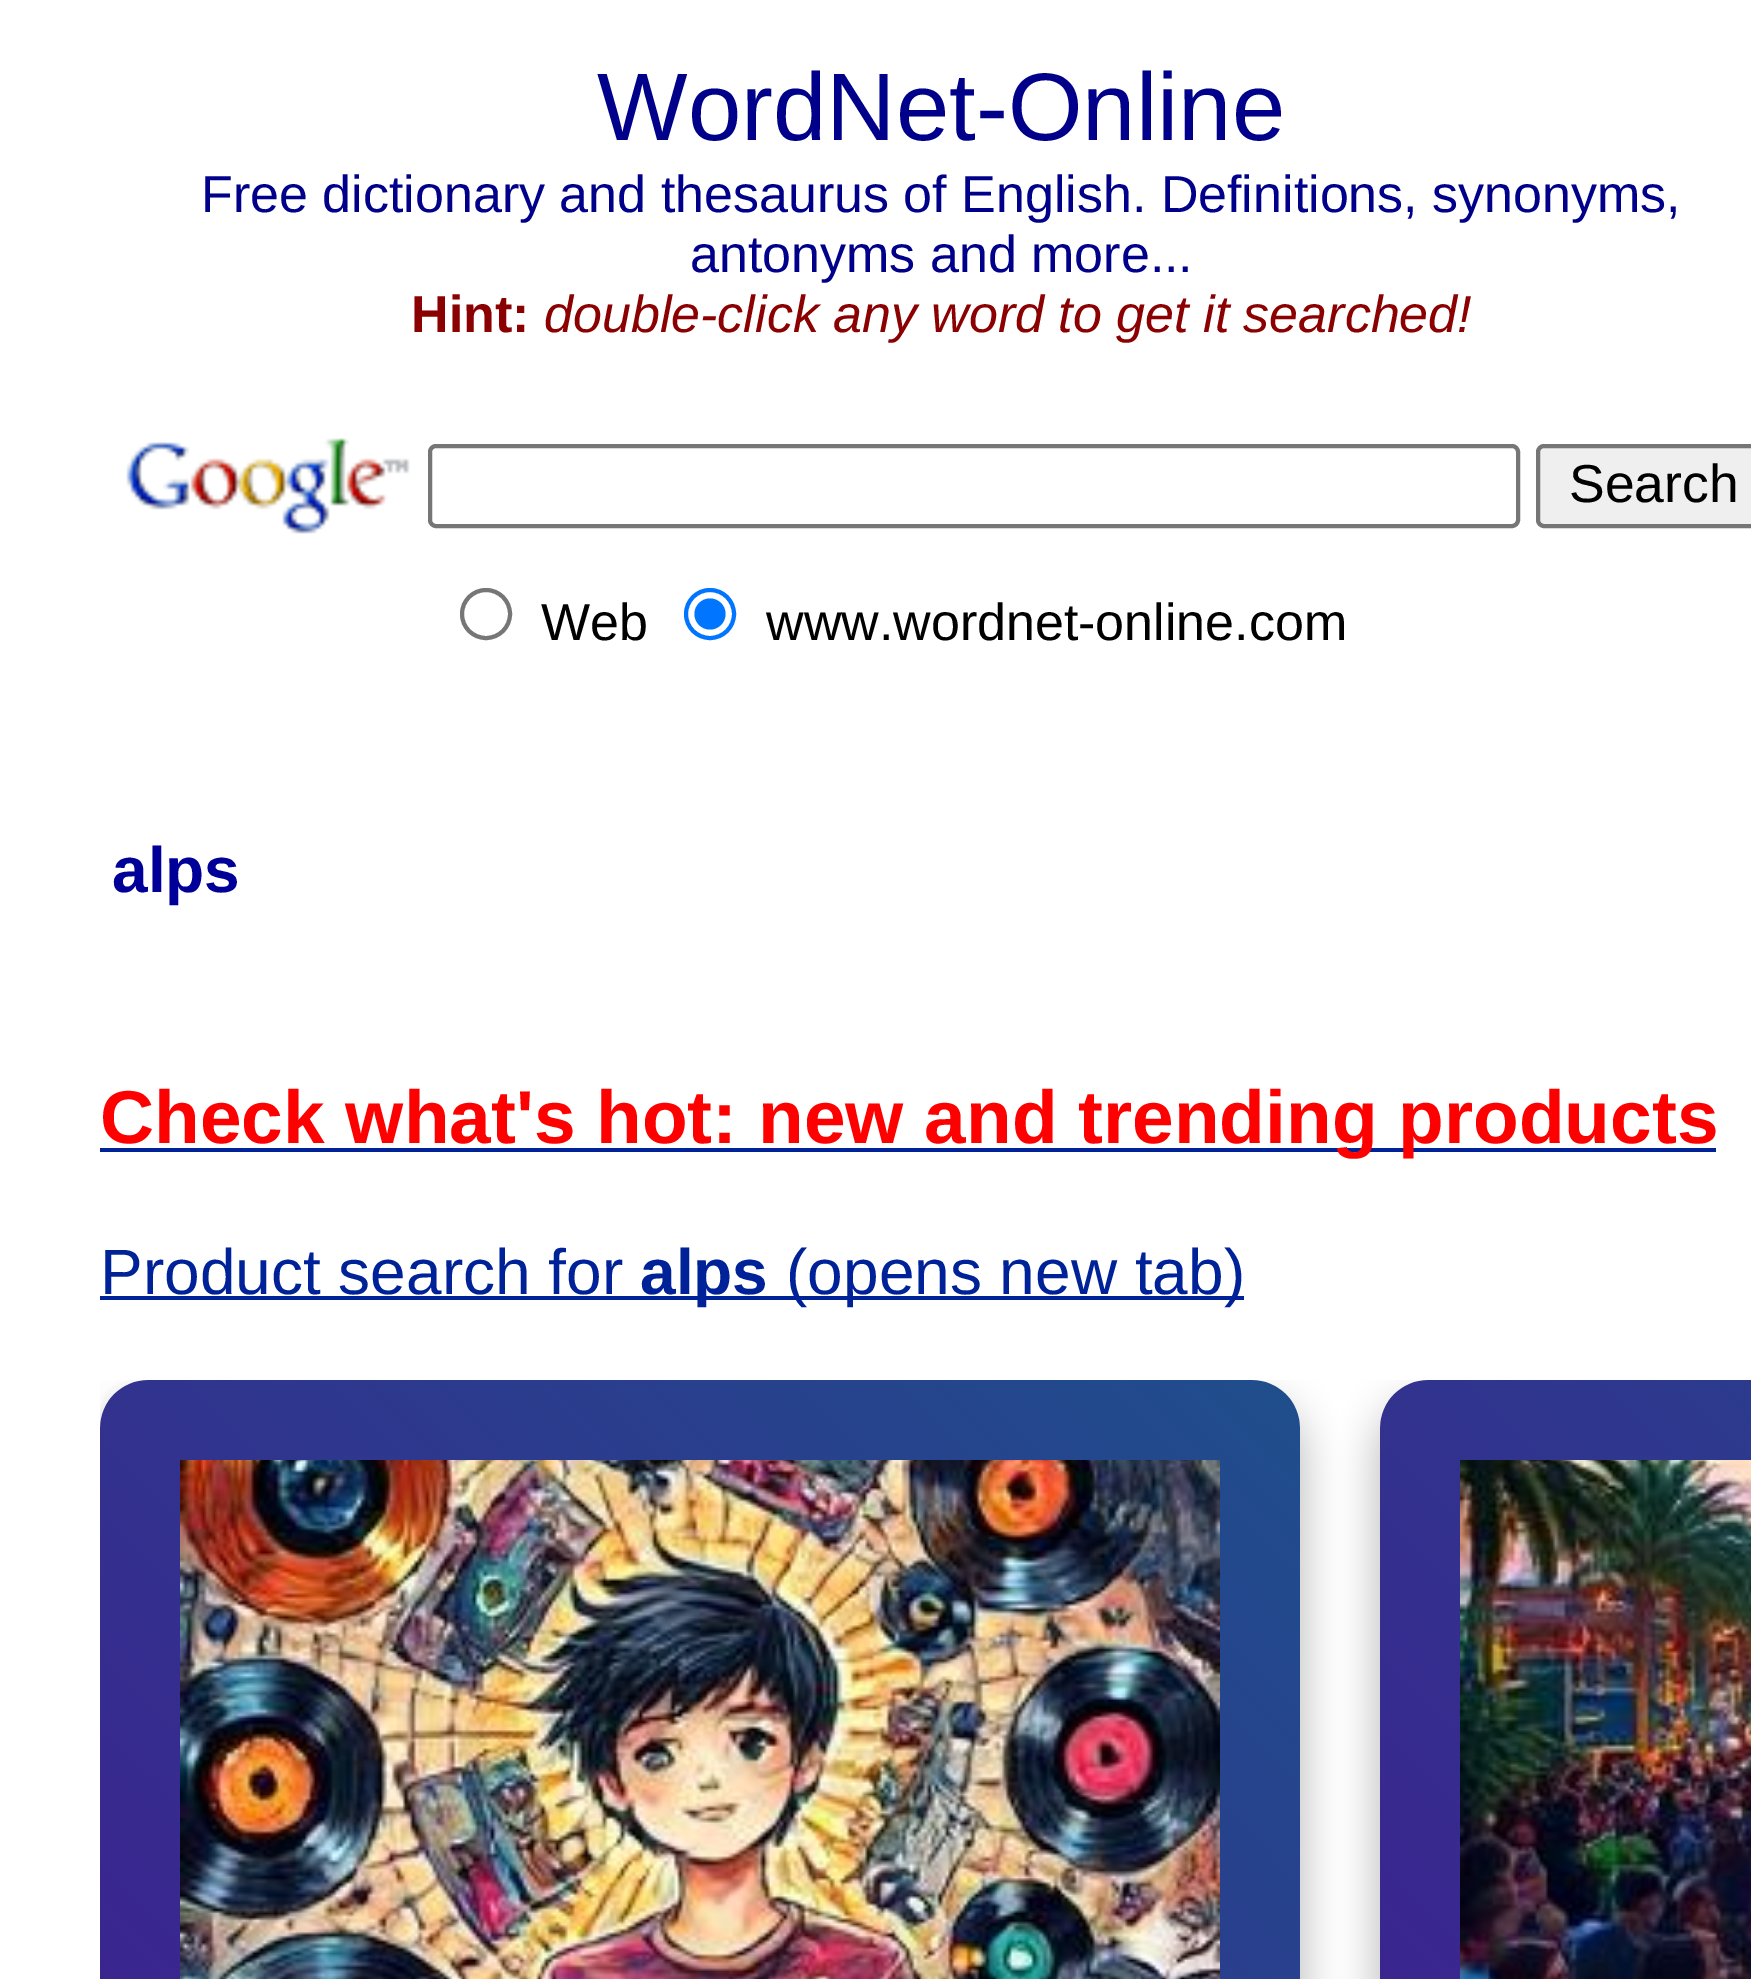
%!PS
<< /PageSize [1751 1979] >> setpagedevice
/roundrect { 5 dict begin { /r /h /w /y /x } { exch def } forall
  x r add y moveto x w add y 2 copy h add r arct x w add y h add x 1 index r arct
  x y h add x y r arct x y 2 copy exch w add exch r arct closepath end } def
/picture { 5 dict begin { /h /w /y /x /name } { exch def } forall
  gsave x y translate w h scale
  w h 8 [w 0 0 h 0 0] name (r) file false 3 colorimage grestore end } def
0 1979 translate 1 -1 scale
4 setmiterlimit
1 setgray
0 0 1751 1979 rectfill
/LiberationSans-Regular [96 0 0 -96 0 0] selectfont
0 0 0.545 setrgbcolor
597 140 moveto (WordNet-Online) show
/LiberationSans-Regular [52 0 0 -52 0 0] selectfont
201 212 moveto (Free dictionary and thesaurus of English. Definitions, synonyms,) show
690 272 moveto (antonyms and more...) show
/LiberationSans-Bold [52 0 0 -52 0 0] selectfont
0.545 0 0 setrgbcolor
411 332 moveto (Hint:) show
/LiberationSans-Italic [52 0 0 -52 0 0] selectfont
544 332 moveto (double-click any word to get it searched!) show
(img1.rgb) 126 438 284 96 picture
0.463 setgray
4 setlinewidth
430 446 1088 80 6 roundrect stroke
0.937 setgray
1538 446 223 80 6 roundrect gsave fill grestore
0.463 setgray
stroke
/LiberationSans-Regular [53.5 0 0 -53.5 0 0] selectfont
0 setgray
1569 502 moveto (Search) show
0.463 setgray
newpath 486 614 24 0 360 arc closepath stroke
/LiberationSans-Regular [52 0 0 -52 0 0] selectfont
0 setgray
541 640 moveto (Web) show
0 0.459 1 setrgbcolor
newpath 710 614 24 0 360 arc closepath stroke
newpath 710 614 15.5 0 360 arc closepath fill
0 setgray
766 640 moveto (www.wordnet-online.com) show
/LiberationSans-Bold [64 0 0 -64 0 0] selectfont
0 0 0.6 setrgbcolor
112 892 moveto (alps) show
0 0.133 0.6 setrgbcolor
100 1148 1616 4 rectfill
/LiberationSans-Bold [74.9 0 0 -74.9 0 0] selectfont
1 0 0 setrgbcolor
100 1143 moveto -0.25 0 32 (Check what's hot: new and trending products) widthshow
/LiberationSans-Regular [64 0 0 -64 0 0] selectfont
0 0.133 0.6 setrgbcolor
100 1294 moveto (Product search for) show
100 1296 1144 4 rectfill
/LiberationSans-Bold [64 0 0 -64 0 0] selectfont
640 1294 moveto (alps) show
/LiberationSans-Regular [64 0 0 -64 0 0] selectfont
786 1294 moveto (\(opens new tab\)) show
(img2.rgb) 100 1380 1651 599 picture
showpage
